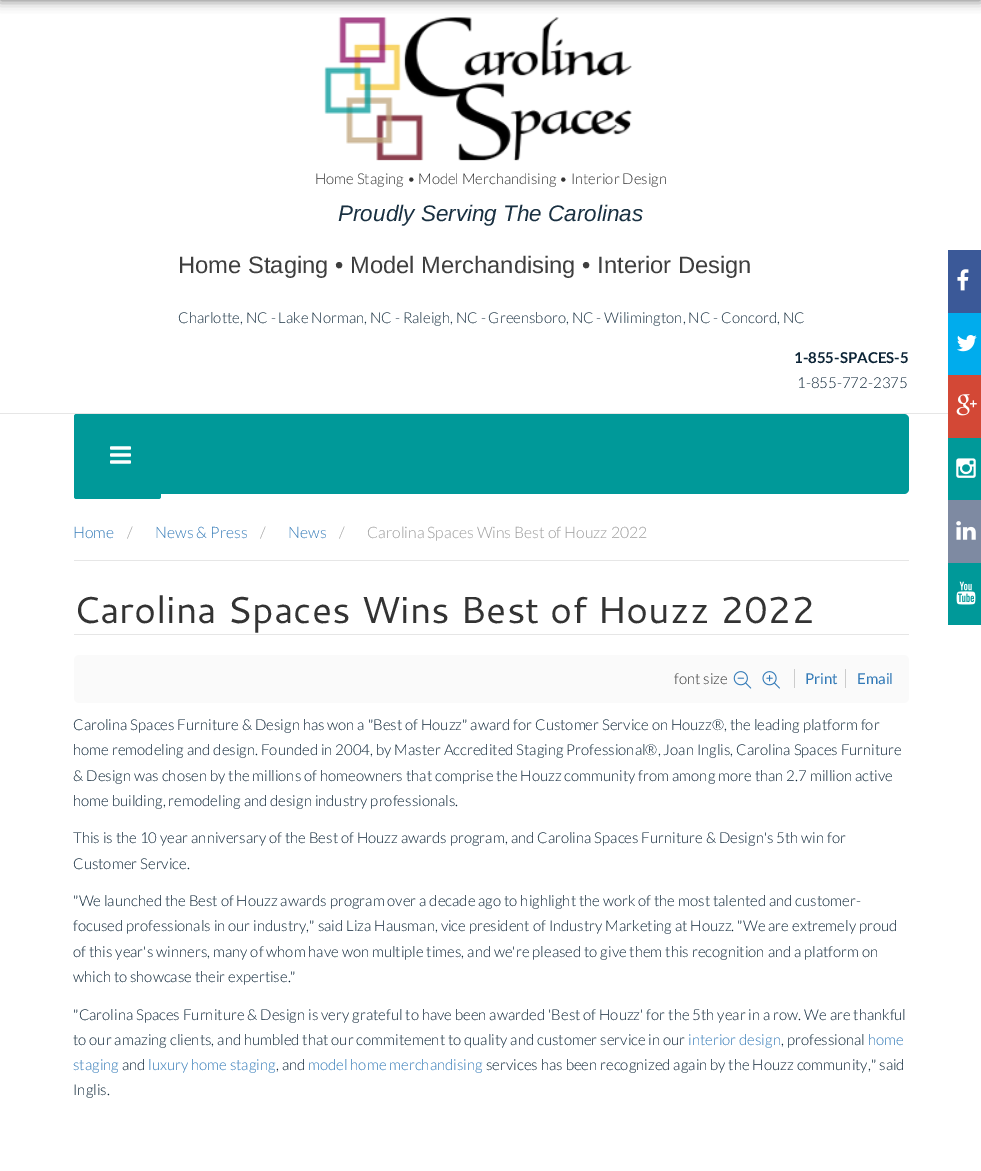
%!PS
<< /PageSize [981 1171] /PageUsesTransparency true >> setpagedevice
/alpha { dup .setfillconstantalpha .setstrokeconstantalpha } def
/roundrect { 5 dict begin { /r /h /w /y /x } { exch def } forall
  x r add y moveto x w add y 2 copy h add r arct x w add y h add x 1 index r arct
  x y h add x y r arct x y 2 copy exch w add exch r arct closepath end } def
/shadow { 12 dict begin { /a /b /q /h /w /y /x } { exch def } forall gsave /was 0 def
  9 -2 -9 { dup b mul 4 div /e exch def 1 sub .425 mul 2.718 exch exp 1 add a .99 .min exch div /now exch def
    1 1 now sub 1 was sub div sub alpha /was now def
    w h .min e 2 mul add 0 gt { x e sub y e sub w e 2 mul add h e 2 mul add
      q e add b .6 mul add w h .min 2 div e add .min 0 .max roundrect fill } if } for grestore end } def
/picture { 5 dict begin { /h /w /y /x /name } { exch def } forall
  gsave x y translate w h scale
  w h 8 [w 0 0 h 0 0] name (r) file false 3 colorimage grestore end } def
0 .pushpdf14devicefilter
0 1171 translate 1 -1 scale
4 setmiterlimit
1 setgray
0 0 981 1171 rectfill
(img1.rgb) 324 17 308 144 picture
0 setgray
0 -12 981 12 0 6 0.6 shadow
0.902 setgray
0 413 948 1 rectfill
/Lato-Light [14.9 0 0 -14.9 0 0] selectfont
0.2 setgray
315 184 moveto (Home Staging • Model Merchandising • Interior Design) show
/LiberationSans-Italic [22.5 0 0 -22.5 0 0] selectfont
0.098 0.188 0.255 setrgbcolor
338 221 moveto (Proudly Serving The Carolinas) show
/LiberationSans-Regular [23.75 0 0 -23.75 0 0] selectfont
0.243 setgray
178 273 moveto (Home Staging • Model Merchandising • Interior Design) show
/Lato-Light [15 0 0 -15 0 0] selectfont
0.098 0.188 0.255 setrgbcolor
178 323 moveto (Charlotte, NC - Lake Norman, NC - Raleigh, NC - Greensboro, NC - Wilimington, NC - Concord, NC) show
/Lato-Bold [15 0 0 -15 0 0] selectfont
0.047 0.141 0.212 setrgbcolor
794 363 moveto (1-855-SPACES-5) show
/Lato-Light [15 0 0 -15 0 0] selectfont
797 388 moveto (1-855-772-2375) show
0 0.6 0.6 setrgbcolor
74 414 835 80 5 roundrect fill
74 414 87 85 2.5 roundrect fill
(img2.rgb) 110 446 21 18 picture
/Lato-Light [15.75 0 0 -15.75 0 0] selectfont
0.2 0.478 0.718 setrgbcolor
73 538 moveto (Home) show
0.6 setgray
127 538 moveto (/) show
0.2 0.478 0.718 setrgbcolor
155 538 moveto (News & Press) show
0.6 setgray
260 538 moveto (/) show
0.2 0.478 0.718 setrgbcolor
288 538 moveto (News) show
0.6 setgray
339 538 moveto (/) show
367 538 moveto (Carolina Spaces Wins Best of Houzz 2022) show
0.902 setgray
74 560 835 1 rectfill
74 634 835 1 rectfill
/Cantarell-Regular [37.5 0 0 -37.5 0 0] selectfont
0.2 setgray
73 623 moveto (Carolina Spaces Wins Best of Houzz 2022) show
0.98 setgray
74 655 835 48 5 roundrect fill
/Lato-Light [15 0 0 -15 0 0] selectfont
0.2 setgray
674 684 moveto (font size) show
(img3.rgb) 733 671 19 18 picture
(img4.rgb) 762 671 18 18 picture
/Lato-Regular [15 0 0 -15 0 0] selectfont
0.2 0.478 0.718 setrgbcolor
805 684 moveto (Print) show
0.8 setgray
794 669 1 19 rectfill
0.2 0.478 0.718 setrgbcolor
857 684 moveto (Email) show
0.8 setgray
845 669 1 19 rectfill
/Lato-Light [15 0 0 -15 0 0] selectfont
0.047 0.141 0.212 setrgbcolor
73 730 moveto (Carolina Spaces Furniture & Design has won a "Best of Houzz" award for Customer Service on Houzz®, the leading platform for) show
73 755 moveto (home remodeling and design. Founded in 2004, by Master Accredited Staging Professional®, Joan Inglis, Carolina Spaces Furniture) show
73 781 moveto (& Design was chosen by the millions of homeowners that comprise the Houzz community from among more than 2.7 million active) show
73 806 moveto (home building, remodeling and design industry professionals.) show
73 843 moveto (This is the 10 year anniversary of the Best of Houzz awards program, and Carolina Spaces Furniture & Design's 5th win for) show
73 869 moveto (Customer Service.) show
73 906 moveto ("We launched the Best of Houzz awards program over a decade ago to highlight the work of the most talented and customer-) show
73 931 moveto (focused professionals in our industry," said Liza Hausman, vice president of Industry Marketing at Houzz. "We are extremely proud) show
73 957 moveto (of this year's winners, many of whom have won multiple times, and we're pleased to give them this recognition and a platform on) show
73 982 moveto (which to showcase their expertise.") show
73 1020 moveto ("Carolina Spaces Furniture & Design is very grateful to have been awarded 'Best of Houzz' for the 5th year in a row. We are thankful) show
73 1045 moveto (to our amazing clients, and humbled that our commitement to quality and customer service in our) show
0.2 0.478 0.718 setrgbcolor
688 1045 moveto (interior design) show
0.047 0.141 0.212 setrgbcolor
781 1045 moveto (, professional) show
0.2 0.478 0.718 setrgbcolor
868 1045 moveto (home) show
73 1070 moveto (staging) show
0.047 0.141 0.212 setrgbcolor
122 1070 moveto (and) show
0.2 0.478 0.718 setrgbcolor
148 1070 moveto (luxury home staging) show
0.047 0.141 0.212 setrgbcolor
276 1070 moveto (, and) show
0.2 0.478 0.718 setrgbcolor
308 1070 moveto (model home merchandising) show
0.047 0.141 0.212 setrgbcolor
486 1070 moveto (services has been recognized again by the Houzz community," said) show
73 1095 moveto (Inglis.) show
0.231 0.349 0.596 setrgbcolor
948 250 33 63 rectfill
(img5.rgb) 957 269 12 22 picture
0 0.675 0.929 setrgbcolor
948 313 33 62 rectfill
(img6.rgb) 957 335 20 17 picture
0.827 0.282 0.212 setrgbcolor
948 375 33 63 rectfill
(img7.rgb) 956 394 21 22 picture
0 0.6 0.6 setrgbcolor
948 438 33 62 rectfill
(img8.rgb) 956 458 20 20 picture
0.494 0.541 0.635 setrgbcolor
948 500 33 63 rectfill
(img9.rgb) 956 521 20 19 picture
0 0.6 0.6 setrgbcolor
948 563 33 62 rectfill
(img10.rgb) 956 581 20 24 picture
.poppdf14devicefilter showpage
